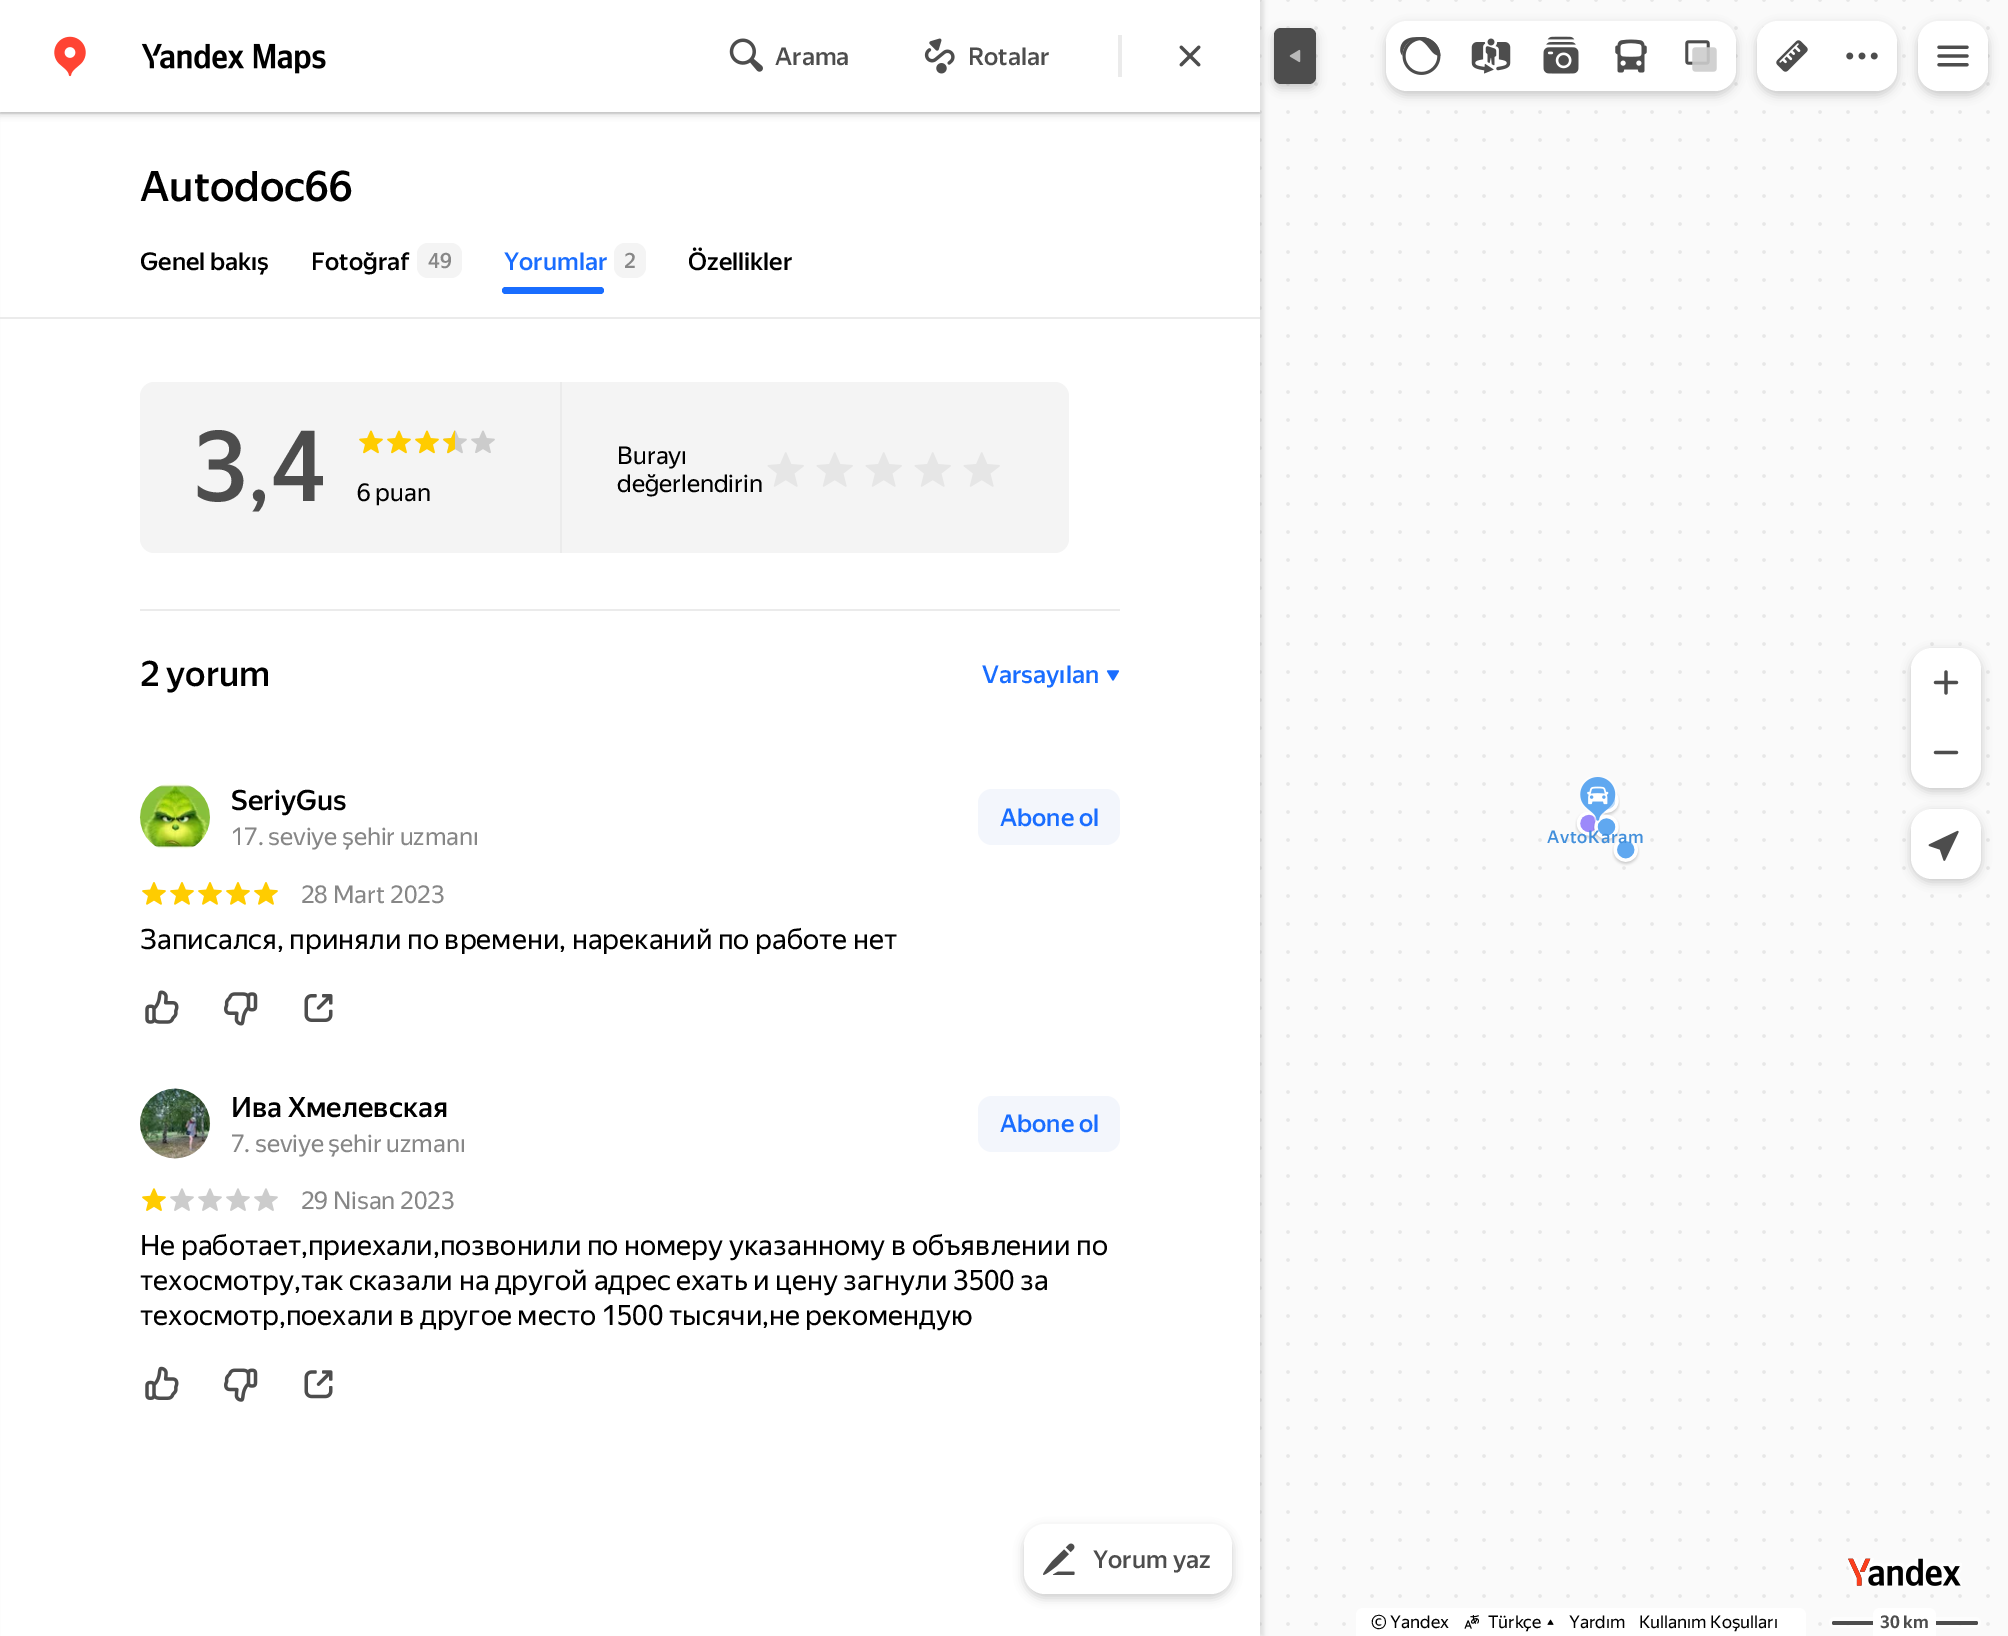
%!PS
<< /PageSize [2008 1636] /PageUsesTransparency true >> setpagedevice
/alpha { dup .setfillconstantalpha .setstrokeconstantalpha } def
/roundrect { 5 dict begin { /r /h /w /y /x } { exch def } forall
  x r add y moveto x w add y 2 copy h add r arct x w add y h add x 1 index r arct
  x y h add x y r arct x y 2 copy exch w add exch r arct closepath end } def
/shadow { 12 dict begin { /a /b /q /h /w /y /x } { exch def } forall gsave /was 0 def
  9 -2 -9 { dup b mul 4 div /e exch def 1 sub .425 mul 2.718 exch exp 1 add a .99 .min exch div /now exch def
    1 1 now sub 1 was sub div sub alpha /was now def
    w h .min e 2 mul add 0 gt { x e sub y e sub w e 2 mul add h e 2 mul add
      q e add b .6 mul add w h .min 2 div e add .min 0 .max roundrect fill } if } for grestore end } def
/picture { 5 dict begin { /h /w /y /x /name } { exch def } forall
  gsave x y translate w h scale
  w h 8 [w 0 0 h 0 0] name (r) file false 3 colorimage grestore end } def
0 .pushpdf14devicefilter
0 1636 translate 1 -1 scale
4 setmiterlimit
1 setgray
0 0 2008 1636 rectfill
(img1.rgb) 1260 0 748 1636 picture
0 setgray
4 0 1260 1636 0 2 0.1 shadow
1 setgray
1 114 1259 1522 rectfill
0.922 setgray
0 112 1260 2 rectfill
gsave
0 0 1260 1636 rectclip
0 setgray
0 107 1260 7 0 3.5 0.2 shadow
grestore
0 setgray
1274 32 42 56 7 5 0.2 shadow
1 setgray
0 0 1260 112 rectfill
(img2.rgb) 54 36 32 41 picture
(img3.rgb) 141 43 185 31 picture
(img4.rgb) 729 38 34 34 picture
/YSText-Medium [24.5 0 0 -24.5 0 0] selectfont
0.302 setgray
775 65 moveto (Arama) show
(img5.rgb) 924 38 31 36 picture
968 65 moveto (Rotalar) show
0.922 setgray
1118 35 4 42 rectfill
(img6.rgb) 1179 45 22 22 picture
/YSText-Medium [42 0 0 -42 0 0] selectfont
0 setgray
140 201 moveto (Autodoc66) show
/YSText-Medium [24.5 0 0 -24.5 0 0] selectfont
140 270 moveto (Genel bakış) show
311 270 moveto (Fotoğraf) show
0.957 setgray
417 243 45 35 11 roundrect fill
/YSText-Medium [21 0 0 -21 0 0] selectfont
0.529 setgray
428 268 moveto (49) show
/YSText-Medium [24.5 0 0 -24.5 0 0] selectfont
0.098 0.427 1 setrgbcolor
504 270 moveto (Yorumlar) show
0.957 setgray
614 243 32 35 11 roundrect fill
/YSText-Medium [21 0 0 -21 0 0] selectfont
0.529 setgray
624 268 moveto (2) show
/YSText-Medium [24.5 0 0 -24.5 0 0] selectfont
0 setgray
688 270 moveto (Özellikler) show
0.098 0.427 1 setrgbcolor
502 287 102 7 3.5 roundrect fill
0.922 setgray
0 317 1260 2 rectfill
0.957 setgray
newpath 154 382 moveto 560 382 lineto 560 553 lineto 154 553 lineto 146.5 553 140 546.5 140 539 curveto 140 396 lineto 140 388.5 146.5 382 154 382 curveto closepath fill
/YSText-Medium [98 0 0 -98 0 0] selectfont
0.302 setgray
193 501 moveto (3) show
/YSText-Regular [98 0 0 -98 0 0] selectfont
247 501 moveto (,) show
/YSText-Medium [98 0 0 -98 0 0] selectfont
271 501 moveto (4) show
(img7.rgb) 359 430 24 24 picture
(img7.rgb) 387 430 24 24 picture
(img7.rgb) 415 430 24 24 picture
(img8.rgb) 443 430 24 24 picture
(img9.rgb) 471 430 24 23 picture
/YSText-Regular [24.5 0 0 -24.5 0 0] selectfont
0 setgray
357 501 moveto (6 puan) show
0.957 setgray
newpath 560 382 moveto 1055 382 lineto 1062.5 382 1069 388.5 1069 396 curveto 1069 539 lineto 1069 546.5 1062.5 553 1055 553 curveto 560 553 lineto closepath fill
0.922 setgray
560 382 2 171 rectfill
0 setgray
617 464 moveto (Burayı) show
617 492 moveto (değerlendirin) show
(img10.rgb) 767 452 37 35 picture
(img10.rgb) 816 452 37 35 picture
(img10.rgb) 865 452 37 35 picture
(img10.rgb) 914 452 37 35 picture
(img10.rgb) 963 452 37 35 picture
0.922 setgray
140 609 980 2 rectfill
/YSText-Medium [35 0 0 -35 0 0] selectfont
0 setgray
140 686 moveto (2 yorum) show
/YSText-Medium [24.5 0 0 -24.5 0 0] selectfont
0.098 0.427 1 setrgbcolor
982 683 moveto (Varsayılan) show
(img11.rgb) 1106 670 14 11 picture
(img12.rgb) 139 783 71 66 picture
/YSText-Medium [28 0 0 -28 0 0] selectfont
0 setgray
231 810 moveto (SeriyGus) show
/YSText-Regular [24.5 0 0 -24.5 0 0] selectfont
0.529 setgray
231 845 moveto -0.5 0 32 (17. seviye şehir uzmanı) widthshow
0.953 0.965 0.988 setrgbcolor
978 789 142 56 14 roundrect fill
/YSText-Medium [24.5 0 0 -24.5 0 0] selectfont
0.098 0.427 1 setrgbcolor
1000 826 moveto (Abone ol) show
(img13.rgb) 142 882 24 23 picture
(img13.rgb) 170 882 24 23 picture
(img13.rgb) 198 882 24 23 picture
(img13.rgb) 226 882 24 23 picture
(img13.rgb) 254 882 24 23 picture
/YSText-Regular [24.5 0 0 -24.5 0 0] selectfont
0.529 setgray
301 903 moveto (28 Mart 2023) show
/YSText-Regular [28 0 0 -28 0 0] selectfont
0 setgray
140 949 moveto (Записался, приняли по времени, нареканий по работе нет) show
(img14.rgb) 145 990 34 34 picture
(img15.rgb) 224 992 34 34 picture
(img16.rgb) 304 994 29 28 picture
(img17.rgb) 140 1088 71 71 picture
/YSText-Medium [28 0 0 -28 0 0] selectfont
231 1117 moveto (Ива Хмелевская) show
/YSText-Regular [24.5 0 0 -24.5 0 0] selectfont
0.529 setgray
231 1152 moveto -0.5 0 32 (7. seviye şehir uzmanı) widthshow
0.953 0.965 0.988 setrgbcolor
978 1096 142 56 14 roundrect fill
/YSText-Medium [24.5 0 0 -24.5 0 0] selectfont
0.098 0.427 1 setrgbcolor
1000 1132 moveto (Abone ol) show
(img18.rgb) 142 1188 24 23 picture
(img19.rgb) 170 1188 24 23 picture
(img19.rgb) 198 1188 24 23 picture
(img19.rgb) 226 1188 24 23 picture
(img19.rgb) 254 1188 24 23 picture
/YSText-Regular [24.5 0 0 -24.5 0 0] selectfont
0.529 setgray
301 1209 moveto (29 Nisan 2023) show
/YSText-Regular [28 0 0 -28 0 0] selectfont
0 setgray
140 1255 moveto (Не работает,приехали,позвонили по номеру указанному в объявлении по) show
140 1290 moveto (техосмотру,так сказали на другой адрес ехать и цену загнули 3500 за) show
140 1325 moveto (техосмотр,поехали в другое место 1500 тысячи,не рекомендую) show
(img20.rgb) 145 1366 34 34 picture
(img21.rgb) 224 1368 34 34 picture
(img22.rgb) 304 1370 29 29 picture
1024 1528 208 70 21 5 0.2 shadow
1 setgray
1024 1524 208 70 21 roundrect fill
(img23.rgb) 1043 1543 32 32 picture
/YSText-Medium [24.5 0 0 -24.5 0 0] selectfont
0.302 setgray
1093 1568 moveto (Yorum yaz) show
1274 28 42 56 7 roundrect fill
(img24.rgb) 1289 49 12 14 picture
0 setgray
1386 25 350 70 21 5 0.2 shadow
1 setgray
newpath 1407 21 moveto 1456 21 lineto 1456 91 lineto 1407 91 lineto 1395.5 91 1386 81.5 1386 70 curveto 1386 42 lineto 1386 30.5 1395.5 21 1407 21 curveto closepath fill
(img25.rgb) 1400 37 41 38 picture
1456 21 210 70 rectfill
(img26.rgb) 1471 38 40 36 picture
newpath 1666 21 moveto 1715 21 lineto 1726.5 21 1736 30.5 1736 42 curveto 1736 70 lineto 1736 81.5 1726.5 91 1715 91 curveto 1666 91 lineto closepath fill
(img27.rgb) 1685 40 32 32 picture
(img28.rgb) 1543 36 36 38 picture
(img29.rgb) 1615 39 32 34 picture
0 setgray
1757 25 140 70 21 5 0.2 shadow
1 setgray
newpath 1778 21 moveto 1827 21 lineto 1827 91 lineto 1778 91 lineto 1766.5 91 1757 81.5 1757 70 curveto 1757 42 lineto 1757 30.5 1766.5 21 1778 21 curveto closepath fill
(img30.rgb) 1776 40 32 32 picture
newpath 1827 21 moveto 1876 21 lineto 1887.5 21 1897 30.5 1897 42 curveto 1897 70 lineto 1897 81.5 1887.5 91 1876 91 curveto 1827 91 lineto closepath fill
(img31.rgb) 1846 52 32 8 picture
0 setgray
1918 25 70 70 21 5 0.2 shadow
1 setgray
1918 21 70 70 21 roundrect fill
(img32.rgb) 1937 45 32 22 picture
0 setgray
1911 651 70 140 21 5 0.2 shadow
1 setgray
newpath 1932 648 moveto 1960 648 lineto 1971.5 648 1981 657.5 1981 669 curveto 1981 718 lineto 1911 718 lineto 1911 669 lineto 1911 657.5 1920.5 648 1932 648 curveto closepath fill
(img33.rgb) 1933 670 26 25 picture
newpath 1911 718 moveto 1981 718 lineto 1981 767 lineto 1981 778.5 1971.5 788 1960 788 curveto 1932 788 lineto 1920.5 788 1911 778.5 1911 767 curveto closepath fill
(img34.rgb) 1933 750 26 5 picture
0 setgray
1911 812 70 70 21 5 0.2 shadow
1 setgray
1911 809 70 70 21 roundrect fill
(img35.rgb) 1928 830 31 31 picture
(img36.rgb) 1848 1558 114 28 picture
newpath 1363 1608 moveto 1799 1608 lineto 1803 1608 1806 1611 1806 1615 curveto 1806 1636 lineto 1356 1636 lineto 1356 1615 lineto 1356 1611 1359 1608 1363 1608 curveto closepath fill
/YSText-Regular [17.5 0 0 -17.5 0 0] selectfont
0 setgray
1371 1628 moveto (© Yandex) show
(img37.rgb) 1464 1615 15 14 picture
1488 1628 moveto (Türkçe) show
(img38.rgb) 1547 1619 7 6 picture
1569 1628 moveto (Yardım) show
1639 1628 moveto (Kullanım Koşulları) show
0.6 alpha
1 setgray
1829 1617 152 11 5.5 roundrect fill
1 alpha
0.302 setgray
1832 1621 146 4 2 roundrect fill
1 setgray
newpath 1880 1608 moveto 1929 1608 lineto 1933 1608 1936 1611 1936 1615 curveto 1936 1636 lineto 1873 1636 lineto 1873 1615 lineto 1873 1611 1876 1608 1880 1608 curveto closepath fill
/YSText-Bold [17.5 0 0 -17.5 0 0] selectfont
0.302 setgray
1880 1628 moveto (30 km) show
(img39.rgb) 1601 790 19 26 picture
(img40.rgb) 1575 812 25 27 picture
(img44.rgb) 1612 838 28 28 picture
(img41.rgb) 1593 814 27 29 picture
(img42.rgb) 1580 777 37 46 picture
(img43.rgb) 1587 786 22 19 picture
/YSText-Medium [17.5 0 0 -17.5 0 0] selectfont
0.259 0.561 0.859 setrgbcolor
1547 843 moveto 0.75 0 (AvtoKaram) ashow
.poppdf14devicefilter showpage
